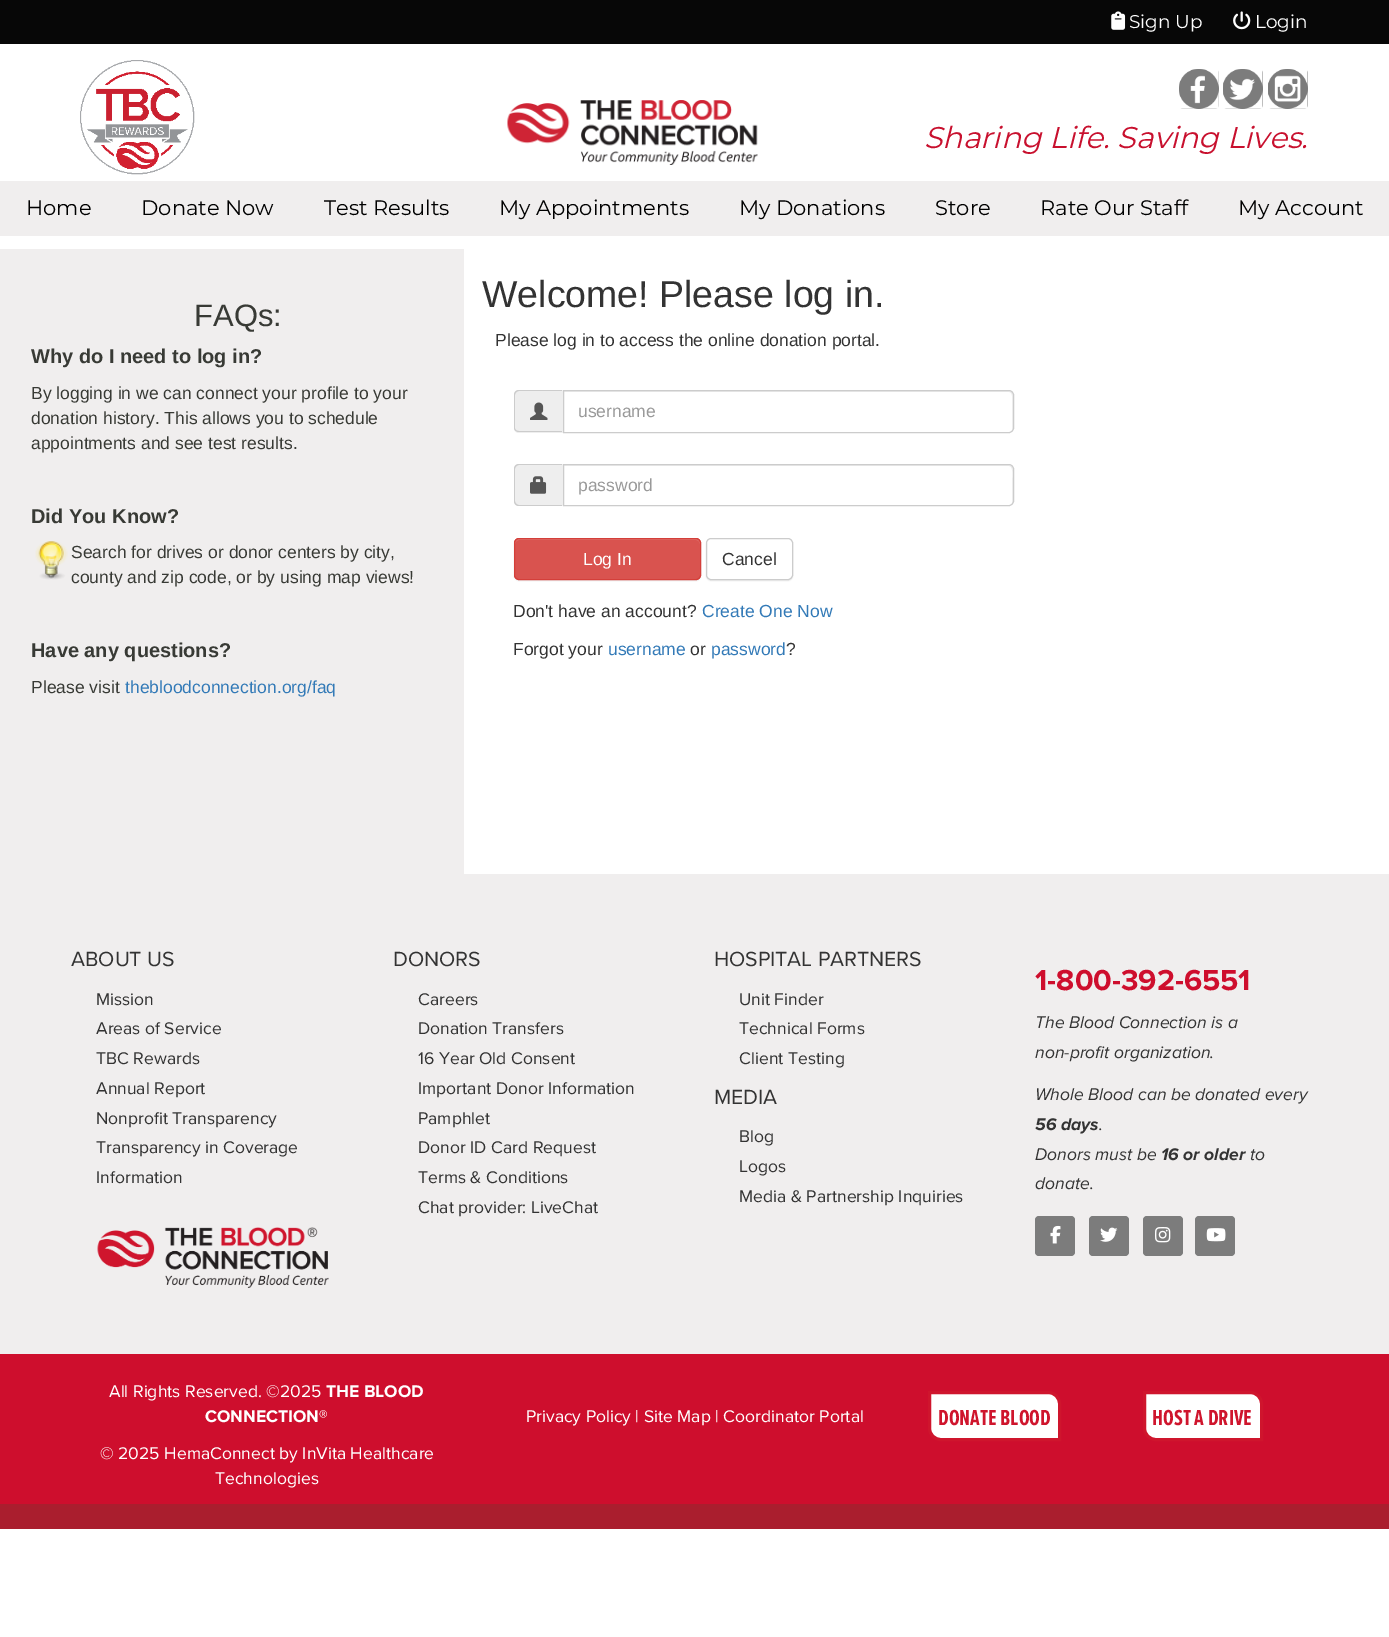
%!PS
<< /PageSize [1389 1637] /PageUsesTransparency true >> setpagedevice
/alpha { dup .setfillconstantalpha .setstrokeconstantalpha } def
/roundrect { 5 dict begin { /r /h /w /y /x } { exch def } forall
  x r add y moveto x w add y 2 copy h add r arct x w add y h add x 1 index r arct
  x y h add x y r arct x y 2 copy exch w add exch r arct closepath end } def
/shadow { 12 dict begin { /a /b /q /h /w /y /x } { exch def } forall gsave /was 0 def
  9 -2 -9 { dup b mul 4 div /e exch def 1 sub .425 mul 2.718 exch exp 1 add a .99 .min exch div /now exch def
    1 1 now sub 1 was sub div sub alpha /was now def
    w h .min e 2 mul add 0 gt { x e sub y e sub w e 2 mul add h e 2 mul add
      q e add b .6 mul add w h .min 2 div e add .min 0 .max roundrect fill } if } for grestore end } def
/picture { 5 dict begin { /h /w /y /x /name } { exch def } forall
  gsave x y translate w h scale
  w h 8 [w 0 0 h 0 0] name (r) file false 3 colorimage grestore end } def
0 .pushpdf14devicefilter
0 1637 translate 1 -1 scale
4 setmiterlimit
1 setgray
0 0 1389 1637 rectfill
0.027 setgray
0 0 1389 44 rectfill
(img1.rgb) 1111 11 15 19 picture
/Montserrat-Thin [18.5 0 0 -18.5 0 0] selectfont
1 setgray
1129 28 moveto (Sign Up) show
(img2.rgb) 1233 11 18 19 picture
1255 28 moveto (Login) show
(img3.rgb) 80 60 115 115 picture
(img4.rgb) 507 100 251 65 picture
0.486 setgray
1179 69 40 40 4 roundrect fill
(img5.rgb) 1179 69 40 40 picture
1223 69 40 40 4 roundrect fill
(img6.rgb) 1223 69 40 40 picture
1268 69 40 40 4 roundrect fill
(img7.rgb) 1268 69 40 40 picture
/Montserrat-ThinItalic [30 0 0 -30 0 0] selectfont
0.784 0.063 0.18 setrgbcolor
924 148 moveto (Sharing Life. Saving Lives.) show
0.941 0.933 0.933 setrgbcolor
0 181 1389 55 rectfill
/Montserrat-Thin [21 0 0 -21 0 0] selectfont
0 setgray
26 215 moveto (Home) show
141 215 moveto (Donate Now) show
324 215 moveto (Test Results) show
499 215 moveto (My Appointments) show
739 215 moveto (My Donations) show
935 215 moveto (Store) show
1040 215 moveto (Rate Our Staff) show
1238 215 moveto (My Account) show
0.941 0.933 0.933 setrgbcolor
0 249 464 625 rectfill
/LiberationSans-Regular [31 0 0 -31 0 0] selectfont
0.22 0.227 0.208 setrgbcolor
194 326 moveto (FAQs:) show
/LiberationSans-Bold [20 0 0 -20 0 0] selectfont
31 363 moveto (Why do I need to log in?) show
/LiberationSans-Regular [17.5 0 0 -17.5 0 0] selectfont
31 399 moveto (By logging in we can connect your profile to your) show
31 424 moveto (donation history. This allows you to schedule) show
31 449 moveto (appointments and see test results.) show
/LiberationSans-Bold [20 0 0 -20 0 0] selectfont
31 523 moveto (Did You Know?) show
(img8.rgb) 35 541 33 39 picture
/LiberationSans-Regular [17.5 0 0 -17.5 0 0] selectfont
71 558 moveto (Search for drives or donor centers by city,) show
71 583 moveto (county and zip code, or by using map views!) show
/LiberationSans-Bold [20 0 0 -20 0 0] selectfont
31 657 moveto (Have any questions?) show
/LiberationSans-Regular [17.5 0 0 -17.5 0 0] selectfont
31 693 moveto (Please visit) show
0.2 0.478 0.718 setrgbcolor
125 693 moveto (thebloodconnection.org/faq) show
/LiberationSans-Regular [37.5 0 0 -37.5 0 0] selectfont
0.2 setgray
482 307 moveto (Welcome! Please log in.) show
/LiberationSans-Regular [17.5 0 0 -17.5 0 0] selectfont
495 346 moveto (Please log in to access the online donation portal.) show
0.933 setgray
newpath 519 390 moveto 563 390 lineto 563 433 lineto 519 433 lineto 516 433 514 431 514 428 curveto 514 395 lineto 514 392 516 390 519 390 curveto closepath fill
0.8 setgray
newpath 519 390 moveto 562 390 lineto 562 432 lineto 519 432 lineto 516 432 514 430 514 428 curveto 514 395 lineto 514 392 516 390 519 390 curveto closepath 519 391 moveto 562 391 lineto 562 431 lineto 519 431 lineto 517 431 515 430 515 428 curveto 515 395 lineto 515 393 517 391 519 391 curveto closepath eofill
(img9.rgb) 530 402 18 18 picture
0.925 setgray
newpath 564 392 moveto 1009 392 lineto 1011 392 1012 394 1012 396 curveto 1012 430 lineto 1013 429 1013 428 1013 427 curveto 1013 395 lineto 1013 393 1011 391 1009 391 curveto 564 391 lineto closepath fill
0.8 setgray
newpath 563.5 390.5 moveto 1009 390.5 lineto 1011.5 390.5 1013.5 392.5 1013.5 395 curveto 1013.5 428 lineto 1013.5 430.5 1011.5 432.5 1009 432.5 curveto 563.5 432.5 lineto closepath stroke
0.6 setgray
578 417 moveto (username) show
0.933 setgray
newpath 519 464 moveto 563 464 lineto 563 506 lineto 519 506 lineto 516 506 514 504 514 501 curveto 514 469 lineto 514 466 516 464 519 464 curveto closepath fill
0.8 setgray
newpath 519 464 moveto 562 464 lineto 562 506 lineto 519 506 lineto 516 506 514 504 514 501 curveto 514 469 lineto 514 466 516 464 519 464 curveto closepath 519 465 moveto 562 465 lineto 562 505 lineto 519 505 lineto 517 505 515 503 515 501 curveto 515 469 lineto 515 467 517 465 519 465 curveto closepath eofill
(img10.rgb) 530 476 17 18 picture
0.925 setgray
newpath 564 466 moveto 1009 466 lineto 1014 466 1012 479 1012 481 curveto 1012 504 lineto 1013 503 1013 502 1013 501 curveto 1013 469 lineto 1013 467 1011 465 1009 465 curveto 564 465 lineto closepath fill
0.8 setgray
newpath 563.5 464.5 moveto 1009 464.5 lineto 1011.5 464.5 1013.5 466.5 1013.5 469 curveto 1013.5 501 lineto 1013.5 503.5 1011.5 505.5 1009 505.5 curveto 563.5 505.5 lineto closepath stroke
0.6 setgray
578 491 moveto (password) show
0 setgray
514 539 187 42 5 0.5 0.07 shadow
0.851 0.325 0.31 setrgbcolor
514 538 187 42 5 roundrect fill
0.875 0.427 0.412 setrgbcolor
newpath 519 540 moveto 696 540 lineto 698 540 700 542 700 544 curveto 700 541 699 539 696 539 curveto 518 539 lineto 516 540 515 542 515 544 curveto 515 542 517 540 519 540 curveto closepath fill
0.831 0.247 0.227 setrgbcolor
514.5 538.5 186 41 4.5 roundrect stroke
1 setgray
583 565 moveto (Log In) show
0 setgray
706 539 87 42 5 0.5 0.07 shadow
1 setgray
706.5 538.5 86 41 4.5 roundrect gsave fill grestore
0.8 setgray
stroke
0.2 setgray
722 565 moveto (Cancel) show
513 617 moveto (Don't have an account?) show
0.2 0.478 0.718 setrgbcolor
702 617 moveto (Create One Now) show
0.2 setgray
513 655 moveto (Forgot your) show
0.2 0.478 0.718 setrgbcolor
608 655 moveto (username) show
0.2 setgray
690 655 moveto (or) show
0.2 0.478 0.718 setrgbcolor
711 655 moveto (password) show
0.2 setgray
786 655 moveto (?) show
0.941 0.933 0.933 setrgbcolor
0 874 1389 480 rectfill
/ProximaNova-Regular [21.25 0 0 -21.25 0 0] selectfont
0.2 setgray
71 966 moveto (ABOUT US) show
/ProximaNova-Regular [17.5 0 0 -17.5 0 0] selectfont
96 1005 moveto (Mission) show
96 1034 moveto (Areas of Service) show
96 1064 moveto (TBC Rewards) show
96 1094 moveto (Annual Report) show
96 1124 moveto (Nonprofit Transparency) show
96 1153 moveto (Transparency in Coverage) show
96 1183 moveto (Information) show
(img11.rgb) 97 1227 232 61 picture
/ProximaNova-Regular [21.25 0 0 -21.25 0 0] selectfont
393 966 moveto (DONORS) show
/ProximaNova-Regular [17.5 0 0 -17.5 0 0] selectfont
418 1005 moveto (Careers) show
418 1034 moveto (Donation Transfers) show
418 1064 moveto (16 Year Old Consent) show
418 1094 moveto (Important Donor Information) show
418 1124 moveto (Pamphlet) show
418 1153 moveto (Donor ID Card Request) show
418 1183 moveto (Terms & Conditions) show
418 1213 moveto (Chat provider: LiveChat) show
/ProximaNova-Regular [21.25 0 0 -21.25 0 0] selectfont
714 966 moveto (HOSPITAL PARTNERS) show
/ProximaNova-Regular [17.5 0 0 -17.5 0 0] selectfont
739 1005 moveto (Unit Finder) show
739 1034 moveto (Technical Forms) show
739 1064 moveto (Client Testing) show
/ProximaNova-Regular [21.25 0 0 -21.25 0 0] selectfont
714 1104 moveto (MEDIA) show
/ProximaNova-Regular [17.5 0 0 -17.5 0 0] selectfont
739 1142 moveto (Blog) show
739 1172 moveto (Logos) show
739 1202 moveto (Media & Partnership Inquiries) show
/ProximaNova-Bold [30 0 0 -30 0 0] selectfont
0.808 0.055 0.176 setrgbcolor
1035 990 moveto (1-800-392-6551) show
/ProximaNova-Italic [17.5 0 0 -17.5 0 0] selectfont
0.2 setgray
1035 1028 moveto (The Blood Connection is a) show
1035 1058 moveto (non-profit organization.) show
1035 1100 moveto (Whole Blood can be donated every) show
/ProximaNova-BoldItalic [17.5 0 0 -17.5 0 0] selectfont
1035 1130 moveto (56 days) show
/ProximaNova-Italic [17.5 0 0 -17.5 0 0] selectfont
1099 1130 moveto (.) show
1035 1160 moveto (Donors must be) show
/ProximaNova-BoldItalic [17.5 0 0 -17.5 0 0] selectfont
1161 1160 moveto (16 or older) show
/ProximaNova-Italic [17.5 0 0 -17.5 0 0] selectfont
1250 1160 moveto (to) show
1035 1189 moveto (donate.) show
0.486 setgray
1035 1216 40 40 4 roundrect fill
(img12.rgb) 1050 1225 11 19 picture
1089 1216 40 40 4 roundrect fill
(img13.rgb) 1100 1227 18 15 picture
1143 1216 40 40 4 roundrect fill
(img14.rgb) 1155 1227 16 16 picture
1195 1216 40 40 4 roundrect fill
(img15.rgb) 1206 1228 20 14 picture
0.808 0.055 0.176 setrgbcolor
0 1354 1389 150 rectfill
/ProximaNova-Regular [17.5 0 0 -17.5 0 0] selectfont
1 setgray
109 1397 moveto (All Rights Reserved. ©2025) show
/ProximaNova-Bold [17.5 0 0 -17.5 0 0] selectfont
326 1397 moveto (THE BLOOD) show
205 1422 moveto (CONNECTION®) show
/ProximaNova-Regular [17.5 0 0 -17.5 0 0] selectfont
100 1459 moveto (© 2025 HemaConnect by InVita Healthcare) show
215 1484 moveto (Technologies) show
526 1422 moveto (Privacy Policy | Site Map | Coordinator Portal) show
newpath 929.5 1392.5 moveto 1048 1392.5 lineto 1054.5 1392.5 1059.5 1397.5 1059.5 1404 curveto 1059.5 1439.5 lineto 941 1439.5 lineto 934.5 1439.5 929.5 1434.5 929.5 1428 curveto closepath gsave fill grestore
0.812 0.082 0.176 setrgbcolor
3 setlinewidth
stroke
/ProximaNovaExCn-Bold [22.5 0 0 -22.5 0 0] selectfont
938 1425 moveto (DONATE BLOOD) show
1 setgray
newpath 1144.5 1392.5 moveto 1250 1392.5 lineto 1256.5 1392.5 1261.5 1397.5 1261.5 1404 curveto 1261.5 1439.5 lineto 1156 1439.5 lineto 1149.5 1439.5 1144.5 1434.5 1144.5 1428 curveto closepath gsave fill grestore
0.812 0.082 0.176 setrgbcolor
stroke
1152 1425 moveto (HOST A DRIVE) show
0.667 0.118 0.18 setrgbcolor
0 1504 1389 25 rectfill
.poppdf14devicefilter showpage
